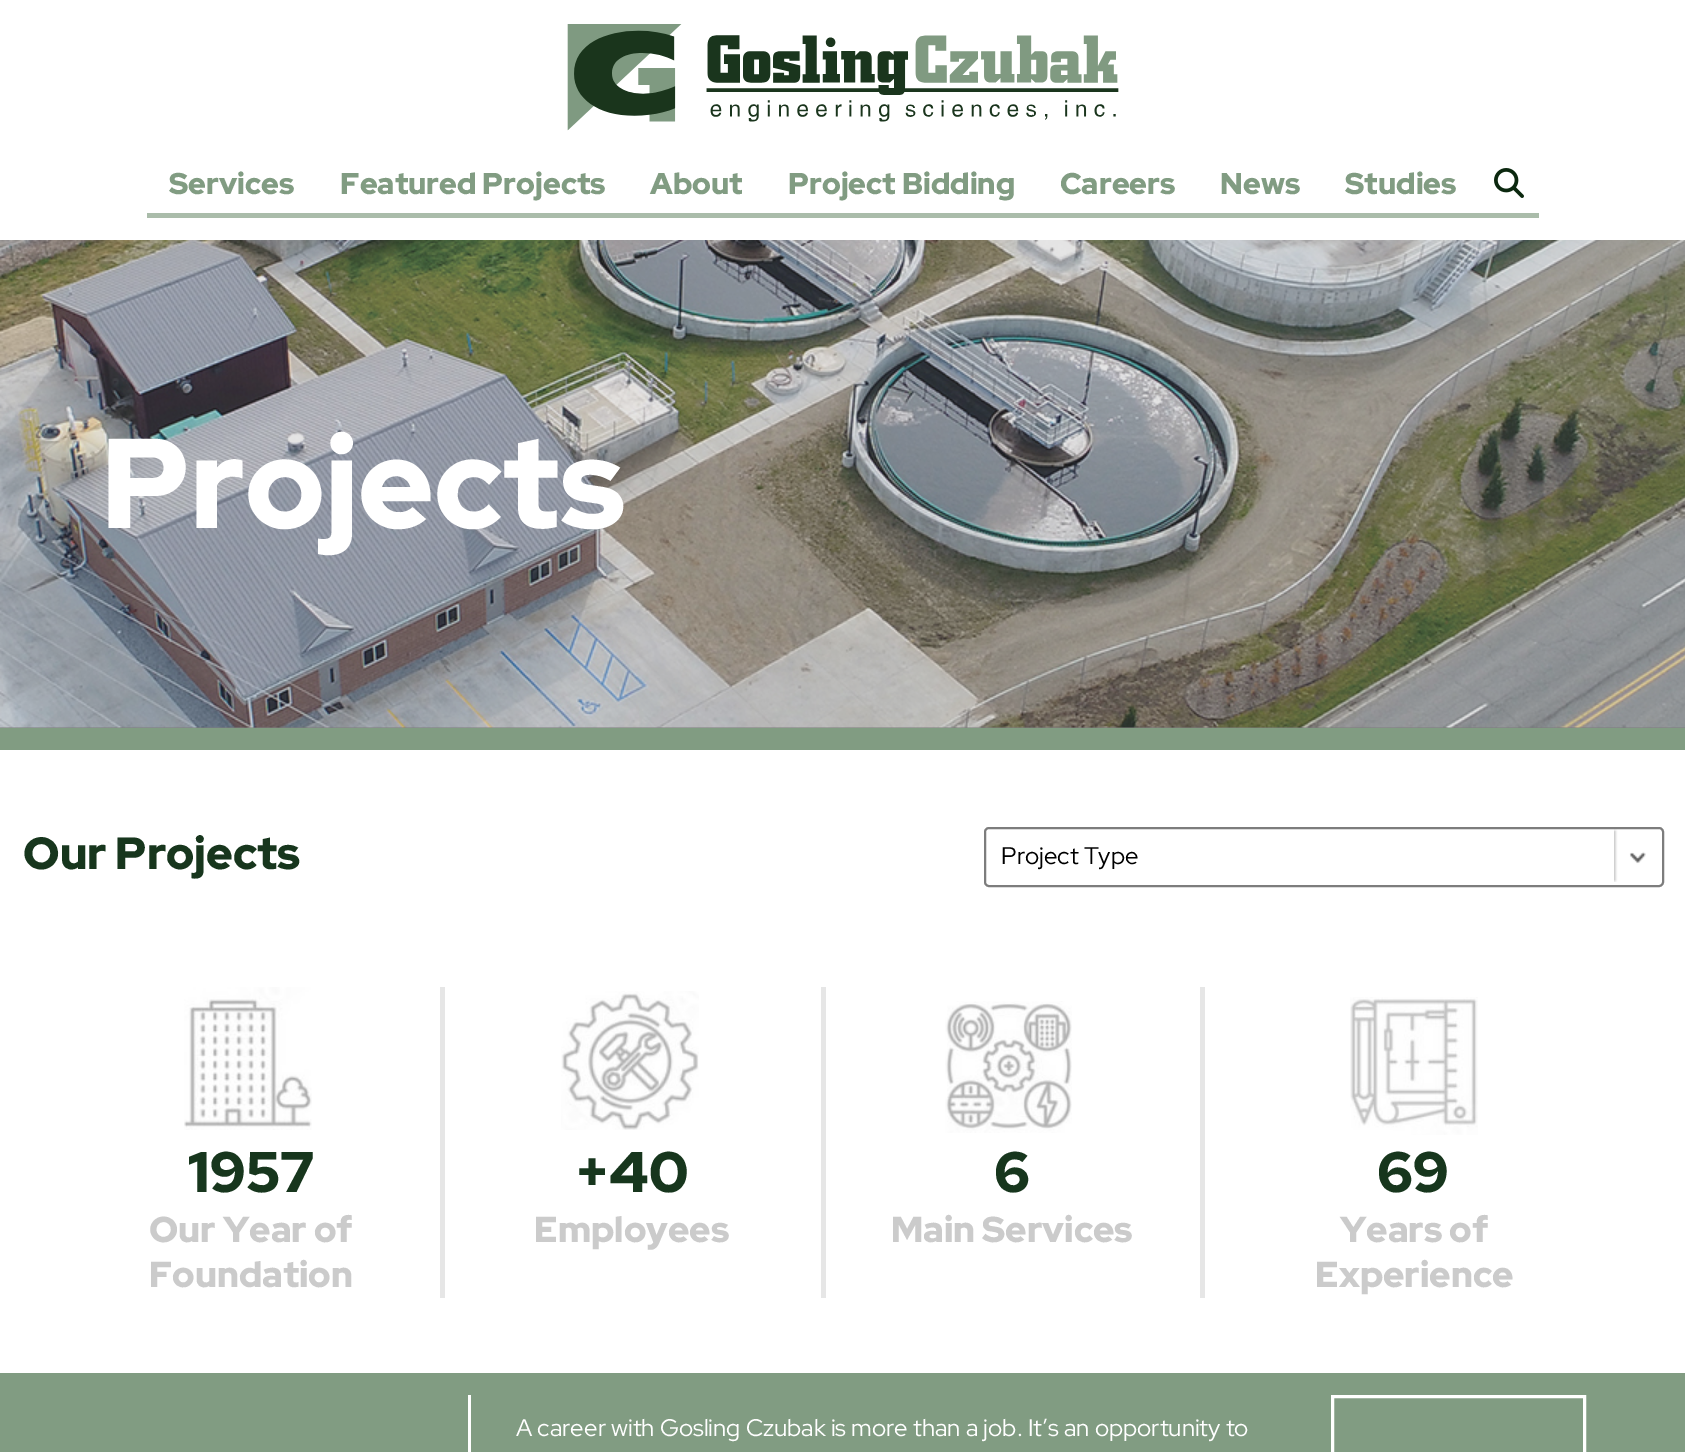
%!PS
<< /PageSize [1685 1452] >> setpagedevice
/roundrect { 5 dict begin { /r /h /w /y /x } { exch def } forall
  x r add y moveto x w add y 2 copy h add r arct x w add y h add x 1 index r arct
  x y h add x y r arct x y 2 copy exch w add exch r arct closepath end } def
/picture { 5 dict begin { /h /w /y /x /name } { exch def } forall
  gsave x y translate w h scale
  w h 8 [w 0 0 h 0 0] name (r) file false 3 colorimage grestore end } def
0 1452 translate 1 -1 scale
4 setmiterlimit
1 setgray
0 0 1685 1452 rectfill
(img1.rgb) 567 24 552 107 picture
0.667 0.737 0.667 setrgbcolor
147 213 1392 5 rectfill
/RedHatDisplay-Black [30 0 0 -30 0 0] selectfont
0.506 0.612 0.51 setrgbcolor
169 194 moveto (Services) show
340 194 moveto (Featured Projects) show
650 194 moveto (About) show
788 194 moveto (Project Bidding) show
1060 194 moveto (Careers) show
1220 194 moveto (News) show
1345 194 moveto (Studies) show
(img2.rgb) 1494 168 30 30 picture
0.49 setgray
0 727 1685 1 rectfill
(img3.rgb) 0 240 1685 488 picture
0.506 0.612 0.51 setrgbcolor
0 728 1685 22 rectfill
/RedHatDisplay-Black [127.5 0 0 -127.5 0 0] selectfont
1 setgray
101 528 moveto (Projects) show
/RedHatDisplay-Black [45 0 0 -45 0 0] selectfont
0.09 0.212 0.114 setrgbcolor
23 869 moveto (Our Projects) show
(img4.rgb) 1614 829 32 53 picture
0.49 setgray
2 setlinewidth
985 828 678 58 4 roundrect stroke
/RedHatDisplay-Regular [24 0 0 -24 0 0] selectfont
0 setgray
1001 864 moveto (Project Type) show
0.902 setgray
440 987 5 311 rectfill
(img5.rgb) 184 987 128 143 picture
/RedHatDisplay-Black [57 0 0 -57 0 0] selectfont
0.09 0.212 0.114 setrgbcolor
188 1192 moveto (1957) show
/RedHatDisplay-Black [36 0 0 -36 0 0] selectfont
0.796 setgray
149 1242 moveto (Our Year of) show
149 1287 moveto (Foundation) show
0.902 setgray
821 987 5 311 rectfill
(img6.rgb) 561 991 138 139 picture
/RedHatDisplay-Black [57 0 0 -57 0 0] selectfont
0.09 0.212 0.114 setrgbcolor
575 1192 moveto (+40) show
/RedHatDisplay-Black [36 0 0 -36 0 0] selectfont
0.796 setgray
534 1242 moveto (Employees) show
0.902 setgray
1200 987 5 311 rectfill
(img7.rgb) 945 1001 127 132 picture
/RedHatDisplay-Black [57 0 0 -57 0 0] selectfont
0.09 0.212 0.114 setrgbcolor
995 1192 moveto (6) show
/RedHatDisplay-Black [36 0 0 -36 0 0] selectfont
0.796 setgray
891 1242 moveto (Main Services) show
(img8.rgb) 1350 997 128 138 picture
/RedHatDisplay-Black [57 0 0 -57 0 0] selectfont
0.09 0.212 0.114 setrgbcolor
1378 1192 moveto (69) show
/RedHatDisplay-Black [36 0 0 -36 0 0] selectfont
0.796 setgray
1340 1242 moveto (Years of) show
1315 1287 moveto (Experience) show
0.506 0.612 0.51 setrgbcolor
0 1373 1685 79 rectfill
1 setgray
468 1395 3 57 rectfill
/RedHatDisplay-Regular [24 0 0 -24 0 0] selectfont
516 1436 moveto (A career with Gosling Czubak is more than a job. It’s an opportunity to) show
3 setlinewidth
1332.5 1396.5 252 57 rectstroke
showpage
